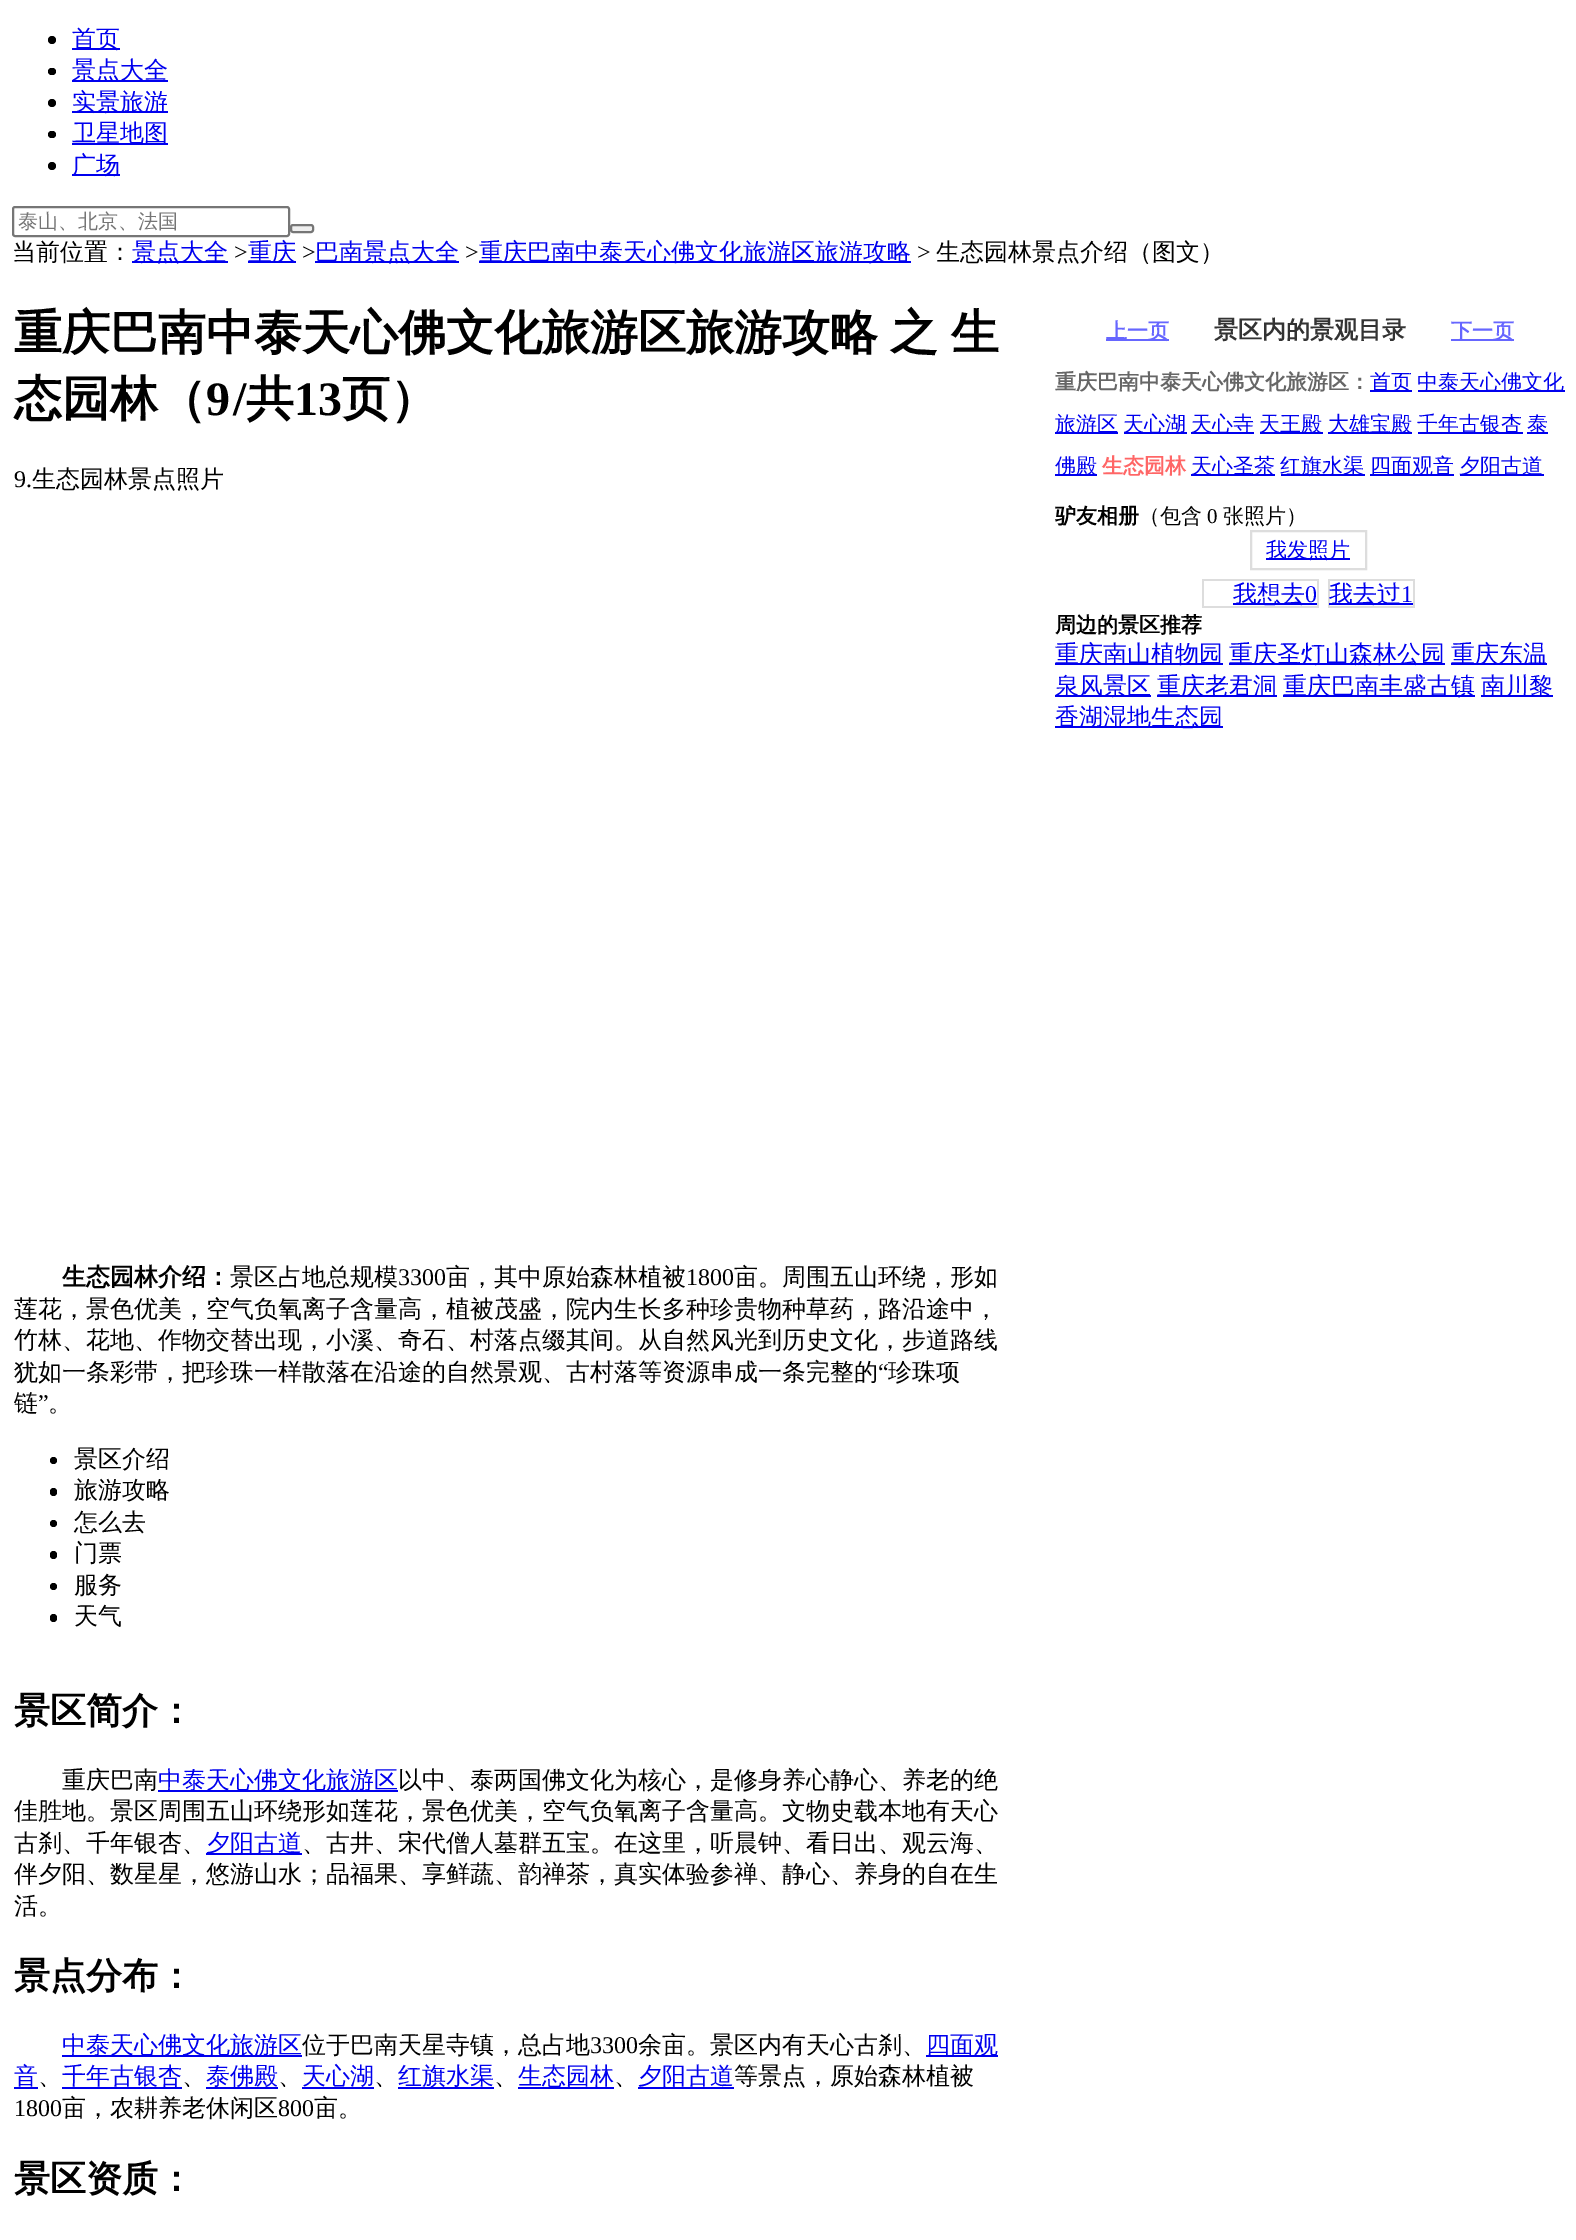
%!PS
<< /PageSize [1576 2240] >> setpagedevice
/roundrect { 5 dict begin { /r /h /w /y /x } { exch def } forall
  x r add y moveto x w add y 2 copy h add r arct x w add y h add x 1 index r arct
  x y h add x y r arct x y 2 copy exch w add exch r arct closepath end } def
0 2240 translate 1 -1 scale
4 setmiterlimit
1 setgray
0 0 1576 2240 rectfill
0 setgray
newpath 52 40 4 0 360 arc closepath fill
0 0 0.933 setrgbcolor
72 48 48 2 rectfill
/WenQuanYiZenHei-Medium [24 0 0 -24 0 0] selectfont
72 47 moveto (首页) show
0 setgray
48 68 8 7 3.5 roundrect fill
0 0 0.933 setrgbcolor
72 80 96 2 rectfill
72 78 moveto (景点大全) show
0 setgray
newpath 52 103 4 0 360 arc closepath fill
0 0 0.933 setrgbcolor
72 111 96 2 rectfill
72 110 moveto (实景旅游) show
0 setgray
48 131 8 7 3.5 roundrect fill
0 0 0.933 setrgbcolor
72 143 96 2 rectfill
72 141 moveto (卫星地图) show
0 setgray
newpath 52 166 4 0 360 arc closepath fill
0 0 0.933 setrgbcolor
72 174 48 2 rectfill
72 173 moveto (广场) show
0.463 setgray
2 setlinewidth
13 207 276 29 2 roundrect stroke
/WenQuanYiZenHei-Medium [20 0 0 -20 0 0] selectfont
0.459 setgray
18 228 moveto (泰山、北京、法国) show
0.937 setgray
291 225 22 7 2 roundrect gsave fill grestore
0.463 setgray
stroke
/WenQuanYiZenHei-Medium [24 0 0 -24 0 0] selectfont
0 setgray
12 260 moveto (当前位置：) show
0 0 0.933 setrgbcolor
132 261 96 2 rectfill
132 260 moveto (景点大全) show
/LiberationSerif-Regular [24 0 0 -24 0 0] selectfont
0 setgray
234 260 moveto (>) show
0 0 0.933 setrgbcolor
248 261 48 2 rectfill
/WenQuanYiZenHei-Medium [24 0 0 -24 0 0] selectfont
248 260 moveto (重庆) show
/LiberationSerif-Regular [24 0 0 -24 0 0] selectfont
0 setgray
302 260 moveto (>) show
0 0 0.933 setrgbcolor
315 261 144 2 rectfill
/WenQuanYiZenHei-Medium [24 0 0 -24 0 0] selectfont
315 260 moveto (巴南景点大全) show
/LiberationSerif-Regular [24 0 0 -24 0 0] selectfont
0 setgray
465 260 moveto (>) show
0 0 0.933 setrgbcolor
479 261 432 2 rectfill
/WenQuanYiZenHei-Medium [24 0 0 -24 0 0] selectfont
479 260 moveto (重庆巴南中泰天心佛文化旅游区旅游攻略) show
/LiberationSerif-Regular [24 0 0 -24 0 0] selectfont
0 setgray
917 260 moveto (>) show
/WenQuanYiZenHei-Medium [24 0 0 -24 0 0] selectfont
936 260 moveto (生态园林景点介绍（图文）) show
/WenQuanYiZenHei-Bold [48 0 0 -48 0 0] selectfont
14 349 moveto -2 0 32 (重庆巴南中泰天心佛文化旅游区旅游攻略 之 生) widthshow
14 415 moveto (态园林（) show
/LiberationSerif-Bold [48 0 0 -48 0 0] selectfont
206 415 moveto (9) show
233 415 moveto (/) show
/WenQuanYiZenHei-Bold [48 0 0 -48 0 0] selectfont
246 415 moveto (共) show
/LiberationSerif-Bold [48 0 0 -48 0 0] selectfont
294 415 moveto (13) show
/WenQuanYiZenHei-Bold [48 0 0 -48 0 0] selectfont
342 415 moveto (页）) show
/LiberationSerif-Regular [24 0 0 -24 0 0] selectfont
14 487 moveto (9.) show
/WenQuanYiZenHei-Medium [24 0 0 -24 0 0] selectfont
32 487 moveto (生态园林景点照片) show
/WenQuanYiZenHei-Bold [24 0 0 -24 0 0] selectfont
62 1285 moveto (生态园林介绍：) show
/WenQuanYiZenHei-Medium [24 0 0 -24 0 0] selectfont
230 1285 moveto (景区占地总规模) show
/LiberationSerif-Regular [24 0 0 -24 0 0] selectfont
398 1285 moveto (3300) show
/WenQuanYiZenHei-Medium [24 0 0 -24 0 0] selectfont
446 1285 moveto (亩，其中原始森林植被) show
/LiberationSerif-Regular [24 0 0 -24 0 0] selectfont
686 1285 moveto (1800) show
/WenQuanYiZenHei-Medium [24 0 0 -24 0 0] selectfont
734 1285 moveto (亩。周围五山环绕，形如) show
14 1317 moveto (莲花，景色优美，空气负氧离子含量高，植被茂盛，院内生长多种珍贵物种草药，路沿途中，) show
14 1348 moveto (竹林、花地、作物交替出现，小溪、奇石、村落点缀其间。从自然风光到历史文化，步道路线) show
14 1380 moveto (犹如一条彩带，把珍珠一样散落在沿途的自然景观、古村落等资源串成一条完整的) show
/LiberationSerif-Regular [24 0 0 -24 0 0] selectfont
878 1380 moveto (“) show
/WenQuanYiZenHei-Medium [24 0 0 -24 0 0] selectfont
888 1380 moveto (珍珠项) show
14 1411 moveto (链) show
/LiberationSerif-Regular [24 0 0 -24 0 0] selectfont
38 1411 moveto (”) show
/WenQuanYiZenHei-Medium [24 0 0 -24 0 0] selectfont
48 1411 moveto (。) show
newpath 53.5 1460.5 3.5 0 360 arc closepath fill
74 1467 moveto (景区介绍) show
50 1488 7 8 3.5 roundrect fill
74 1498 moveto (旅游攻略) show
newpath 53.5 1523.5 3.5 0 360 arc closepath fill
74 1530 moveto (怎么去) show
50 1551 7 8 3.5 roundrect fill
74 1561 moveto (门票) show
newpath 53.5 1586.5 3.5 0 360 arc closepath fill
74 1593 moveto (服务) show
50 1614 7 8 3.5 roundrect fill
74 1624 moveto (天气) show
/WenQuanYiZenHei-Bold [36 0 0 -36 0 0] selectfont
14 1723 moveto (景区简介：) show
/WenQuanYiZenHei-Medium [24 0 0 -24 0 0] selectfont
62 1788 moveto (重庆巴南) show
0 0 0.933 setrgbcolor
158 1790 240 2 rectfill
158 1788 moveto (中泰天心佛文化旅游区) show
0 setgray
398 1788 moveto (以中、泰两国佛文化为核心，是修身养心静心、养老的绝) show
14 1819 moveto (佳胜地。景区周围五山环绕形如莲花，景色优美，空气负氧离子含量高。文物史载本地有天心) show
14 1851 moveto (古刹、千年银杏、) show
0 0 0.933 setrgbcolor
206 1853 96 2 rectfill
206 1851 moveto (夕阳古道) show
0 setgray
302 1851 moveto (、古井、宋代僧人墓群五宝。在这里，听晨钟、看日出、观云海、) show
14 1882 moveto (伴夕阳、数星星，悠游山水；品福果、享鲜蔬、韵禅茶，真实体验参禅、静心、养身的自在生) show
14 1914 moveto (活。) show
/WenQuanYiZenHei-Bold [36 0 0 -36 0 0] selectfont
14 1988 moveto (景点分布：) show
0 0 0.933 setrgbcolor
62 2055 240 2 rectfill
/WenQuanYiZenHei-Medium [24 0 0 -24 0 0] selectfont
62 2053 moveto (中泰天心佛文化旅游区) show
0 setgray
302 2053 moveto (位于巴南天星寺镇，总占地) show
/LiberationSerif-Regular [24 0 0 -24 0 0] selectfont
590 2053 moveto (3300) show
/WenQuanYiZenHei-Medium [24 0 0 -24 0 0] selectfont
638 2053 moveto (余亩。景区内有天心古刹、) show
0 0 0.933 setrgbcolor
926 2055 72 2 rectfill
926 2053 moveto (四面观) show
14 2084 moveto (音) show
14 2087 24 2 rectfill
0 setgray
38 2084 moveto (、) show
0 0 0.933 setrgbcolor
62 2087 120 2 rectfill
62 2084 moveto (千年古银杏) show
0 setgray
182 2084 moveto (、) show
0 0 0.933 setrgbcolor
206 2087 72 2 rectfill
206 2084 moveto (泰佛殿) show
0 setgray
278 2084 moveto (、) show
0 0 0.933 setrgbcolor
302 2084 moveto (天心湖) show
302 2087 72 2 rectfill
0 setgray
374 2084 moveto (、) show
0 0 0.933 setrgbcolor
398 2087 96 2 rectfill
398 2084 moveto (红旗水渠) show
0 setgray
494 2084 moveto (、) show
0 0 0.933 setrgbcolor
518 2087 96 2 rectfill
518 2084 moveto (生态园林) show
0 setgray
614 2084 moveto (、) show
0 0 0.933 setrgbcolor
638 2087 96 2 rectfill
638 2084 moveto (夕阳古道) show
0 setgray
734 2084 moveto (等景点，原始森林植被) show
/LiberationSerif-Regular [24 0 0 -24 0 0] selectfont
14 2116 moveto (1800) show
/WenQuanYiZenHei-Medium [24 0 0 -24 0 0] selectfont
62 2116 moveto (亩，农耕养老休闲区) show
/LiberationSerif-Regular [24 0 0 -24 0 0] selectfont
278 2116 moveto (800) show
/WenQuanYiZenHei-Medium [24 0 0 -24 0 0] selectfont
314 2116 moveto (亩。) show
/WenQuanYiZenHei-Bold [36 0 0 -36 0 0] selectfont
14 2191 moveto (景区资质：) show
0.4 0.4 1 setrgbcolor
1106 339 63 2 rectfill
/WenQuanYiZenHei-Bold [21 0 0 -21 0 0] selectfont
1106 338 moveto (上一页) show
/WenQuanYiZenHei-Bold [24 0 0 -24 0 0] selectfont
0.2 setgray
1214 338 moveto (景区内的景观目录) show
0.4 0.4 1 setrgbcolor
1451 339 63 2 rectfill
/WenQuanYiZenHei-Bold [21 0 0 -21 0 0] selectfont
1451 338 moveto (下一页) show
0.4 setgray
1055 389 moveto (重庆巴南中泰天心佛文化旅游区：) show
0 0 0.933 setrgbcolor
1370 390 42 2 rectfill
/WenQuanYiZenHei-Medium [21 0 0 -21 0 0] selectfont
1370 389 moveto (首页) show
1418 390 147 2 rectfill
1417 389 moveto (中泰天心佛文化) show
1055 432 63 2 rectfill
1055 431 moveto (旅游区) show
1124 432 63 2 rectfill
1123 431 moveto (天心湖) show
1191 432 63 2 rectfill
1191 431 moveto (天心寺) show
1260 432 63 2 rectfill
1259 431 moveto (天王殿) show
1328 432 84 2 rectfill
1328 431 moveto (大雄宝殿) show
1418 432 105 2 rectfill
1417 431 moveto (千年古银杏) show
1527 432 21 2 rectfill
1527 431 moveto (泰) show
1055 474 42 2 rectfill
1055 473 moveto (佛殿) show
/WenQuanYiZenHei-Bold [21 0 0 -21 0 0] selectfont
1 0.4 0.4 setrgbcolor
1102 473 moveto (生态园林) show
0 0 0.933 setrgbcolor
1191 474 84 2 rectfill
/WenQuanYiZenHei-Medium [21 0 0 -21 0 0] selectfont
1191 473 moveto (天心圣茶) show
1281 474 84 2 rectfill
1280 473 moveto (红旗水渠) show
1370 474 84 2 rectfill
1370 473 moveto (四面观音) show
1460 474 84 2 rectfill
1459 473 moveto (夕阳古道) show
/WenQuanYiZenHei-Bold [21 0 0 -21 0 0] selectfont
0 setgray
1055 523 moveto (驴友相册) show
/WenQuanYiZenHei-Medium [21 0 0 -21 0 0] selectfont
1139 523 moveto (（包含) show
/LiberationSerif-Regular [21 0 0 -21 0 0] selectfont
1207 523 moveto (0) show
/WenQuanYiZenHei-Medium [21 0 0 -21 0 0] selectfont
1223 523 moveto (张照片）) show
0.867 setgray
1251 531 115 38 rectstroke
0 0 0.933 setrgbcolor
1266 558 84 2 rectfill
1266 557 moveto (我发照片) show
1233 603 84 2 rectfill
/WenQuanYiZenHei-Medium [24 0 0 -24 0 0] selectfont
1233 602 moveto (我想去) show
0.867 setgray
1202 579 117 2 rectfill
1202 606 103 2 rectfill
1202 579 2 29 rectfill
/LiberationSerif-Regular [24 0 0 -24 0 0] selectfont
0 0 0.933 setrgbcolor
1305 602 moveto (0) show
0.867 setgray
1317 579 2 29 rectfill
1305 606 14 2 rectfill
1328 579 87 2 rectfill
1328 606 73 2 rectfill
1328 579 2 29 rectfill
0 0 0.933 setrgbcolor
1329 603 84 2 rectfill
/WenQuanYiZenHei-Medium [24 0 0 -24 0 0] selectfont
1329 602 moveto (我去过) show
/LiberationSerif-Regular [24 0 0 -24 0 0] selectfont
1401 602 moveto (1) show
0.867 setgray
1413 579 2 29 rectfill
1401 606 14 2 rectfill
/WenQuanYiZenHei-Bold [21 0 0 -21 0 0] selectfont
0 setgray
1055 632 moveto (周边的景区推荐) show
0 0 0.933 setrgbcolor
1055 663 168 2 rectfill
/WenQuanYiZenHei-Medium [24 0 0 -24 0 0] selectfont
1055 662 moveto (重庆南山植物园) show
1229 663 216 2 rectfill
1229 662 moveto (重庆圣灯山森林公园) show
1451 663 96 2 rectfill
1451 662 moveto (重庆东温) show
1055 695 96 2 rectfill
1055 694 moveto (泉风景区) show
1157 695 120 2 rectfill
1157 694 moveto (重庆老君洞) show
1283 695 192 2 rectfill
1283 694 moveto (重庆巴南丰盛古镇) show
1481 695 72 2 rectfill
1481 694 moveto (南川黎) show
1055 726 168 2 rectfill
1055 725 moveto (香湖湿地生态园) show
showpage
